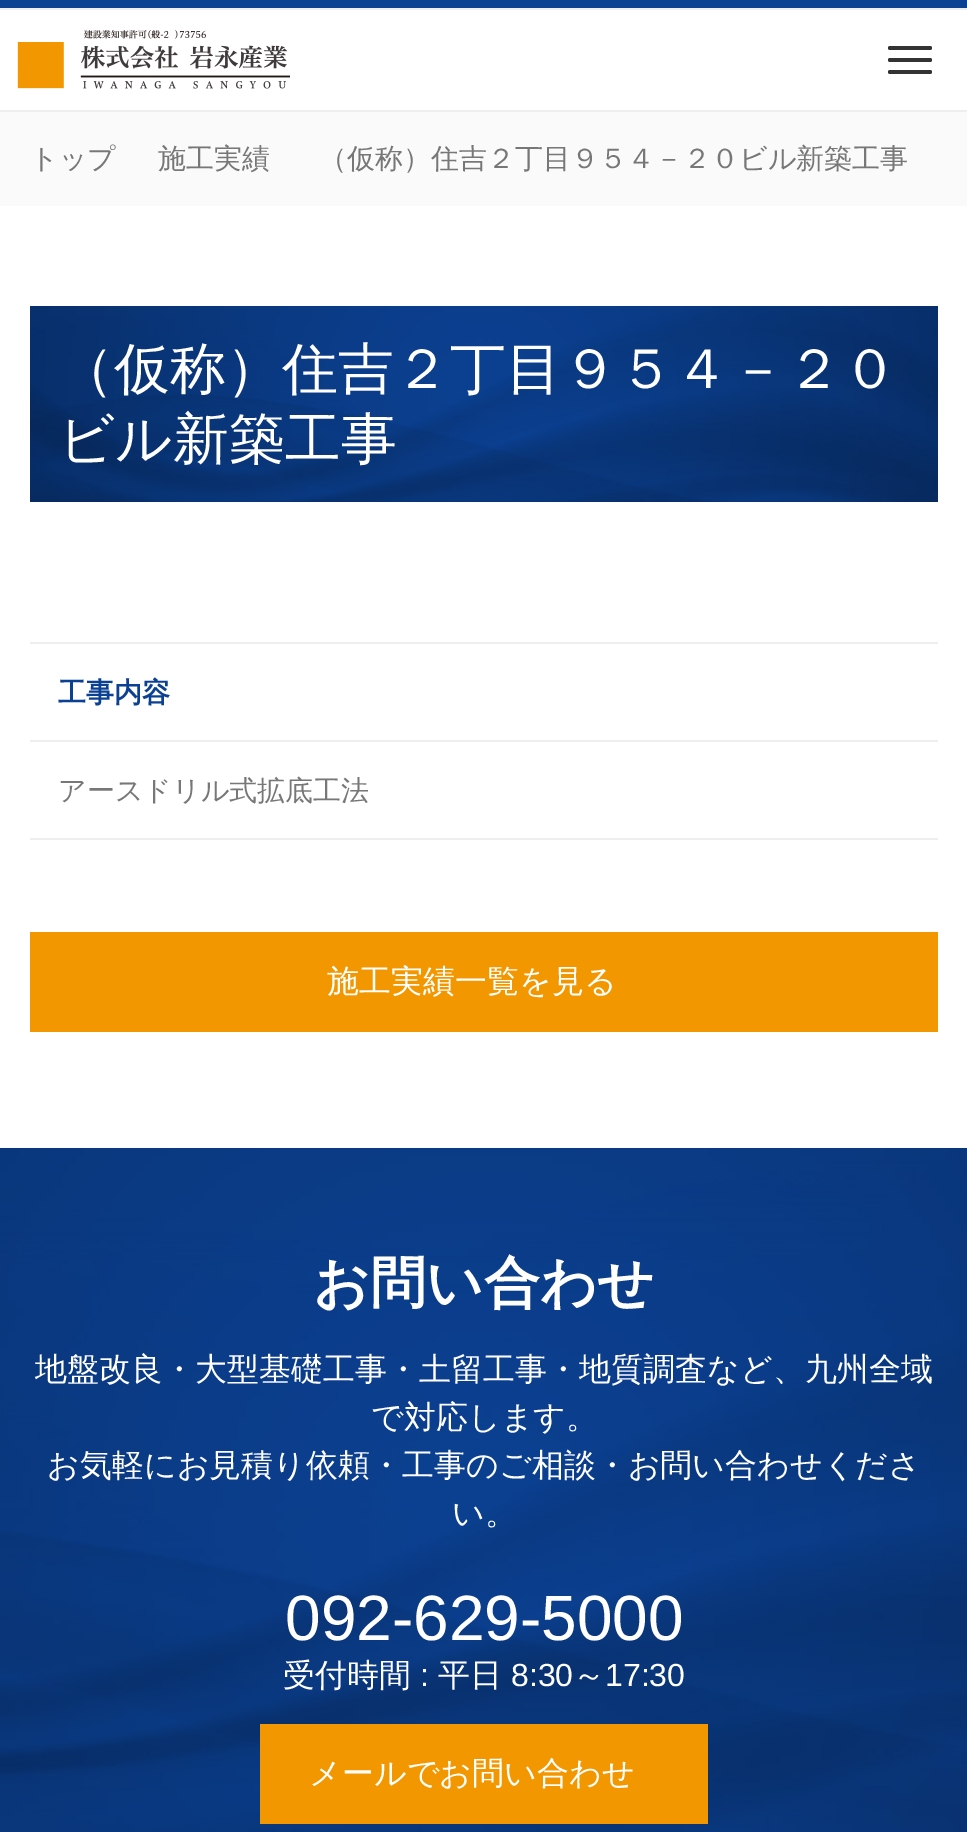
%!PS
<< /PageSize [967 1832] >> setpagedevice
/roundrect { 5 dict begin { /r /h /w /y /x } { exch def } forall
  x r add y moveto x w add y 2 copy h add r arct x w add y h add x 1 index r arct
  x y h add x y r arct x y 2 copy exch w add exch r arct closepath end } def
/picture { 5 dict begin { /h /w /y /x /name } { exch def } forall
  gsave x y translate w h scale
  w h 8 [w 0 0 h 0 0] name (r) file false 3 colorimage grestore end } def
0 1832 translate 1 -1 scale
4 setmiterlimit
1 setgray
0 0 967 1832 rectfill
0.043 0.255 0.576 setrgbcolor
0 0 967 8 rectfill
0.933 setgray
0 8 967 2 rectfill
0 110 967 2 rectfill
(img1.rgb) 17 30 273 59 picture
0.2 setgray
888 46 44 4 2 roundrect fill
888 58 44 4 2 roundrect fill
888 70 44 4 2 roundrect fill
0.98 setgray
0 112 967 94 rectfill
/WenQuanYiZenHei-Medium [28 0 0 -28 0 0] selectfont
0.467 setgray
30 168 moveto (トップ) show
158 168 moveto (施工実績) show
319 168 moveto (（仮称）住吉２丁目９５４－２０ビル新築工事) show
(img2.rgb) 30 306 908 196 picture
/WenQuanYiZenHei-Medium [56 0 0 -56 0 0] selectfont
1 setgray
58 388 moveto (（仮称）住吉２丁目９５４－２０) show
58 458 moveto (ビル新築工事) show
0.933 setgray
30 642 908 2 rectfill
/WenQuanYiZenHei-Bold [28 0 0 -28 0 0] selectfont
0.043 0.255 0.576 setrgbcolor
58 702 moveto (工事内容) show
0.933 setgray
30 740 908 2 rectfill
30 838 908 2 rectfill
/WenQuanYiZenHei-Medium [28 0 0 -28 0 0] selectfont
0.467 setgray
58 800 moveto (アースドリル式拡底工法) show
0.953 0.592 0 setrgbcolor
30 932 908 100 rectfill
/WenQuanYiZenHei-Medium [32 0 0 -32 0 0] selectfont
1 setgray
327 992 moveto (施工実績一覧を見る) show
(img3.rgb) 0 1148 967 684 picture
/WenQuanYiZenHei-Bold [56 0 0 -56 0 0] selectfont
313 1302 moveto (お問い合わせ) show
/WenQuanYiZenHei-Medium [32 0 0 -32 0 0] selectfont
35 1380 moveto (地盤改良・大型基礎工事・土留工事・地質調査など、九州全域) show
371 1428 moveto (で対応します。) show
47 1476 moveto (お気軽にお見積り依頼・工事のご相談・お問い合わせくださ) show
452 1524 moveto (い。) show
/LiberationSans-Regular [64 0 0 -64 0 0] selectfont
285 1640 moveto (092-629-5000) show
/WenQuanYiZenHei-Medium [32 0 0 -32 0 0] selectfont
283 1686 moveto (受付時間) show
/LiberationSans-Regular [32 0 0 -32 0 0] selectfont
420 1686 moveto (:) show
/WenQuanYiZenHei-Medium [32 0 0 -32 0 0] selectfont
438 1686 moveto (平日) show
/LiberationSans-Regular [32 0 0 -32 0 0] selectfont
511 1686 moveto (8:30) show
/WenQuanYiZenHei-Medium [32 0 0 -32 0 0] selectfont
573 1686 moveto (～) show
/LiberationSans-Regular [32 0 0 -32 0 0] selectfont
605 1686 moveto (17:30) show
0.953 0.592 0 setrgbcolor
260 1724 448 100 rectfill
/WenQuanYiZenHei-Medium [32 0 0 -32 0 0] selectfont
1 setgray
309 1784 moveto (メールでお問い合わせ) show
showpage
